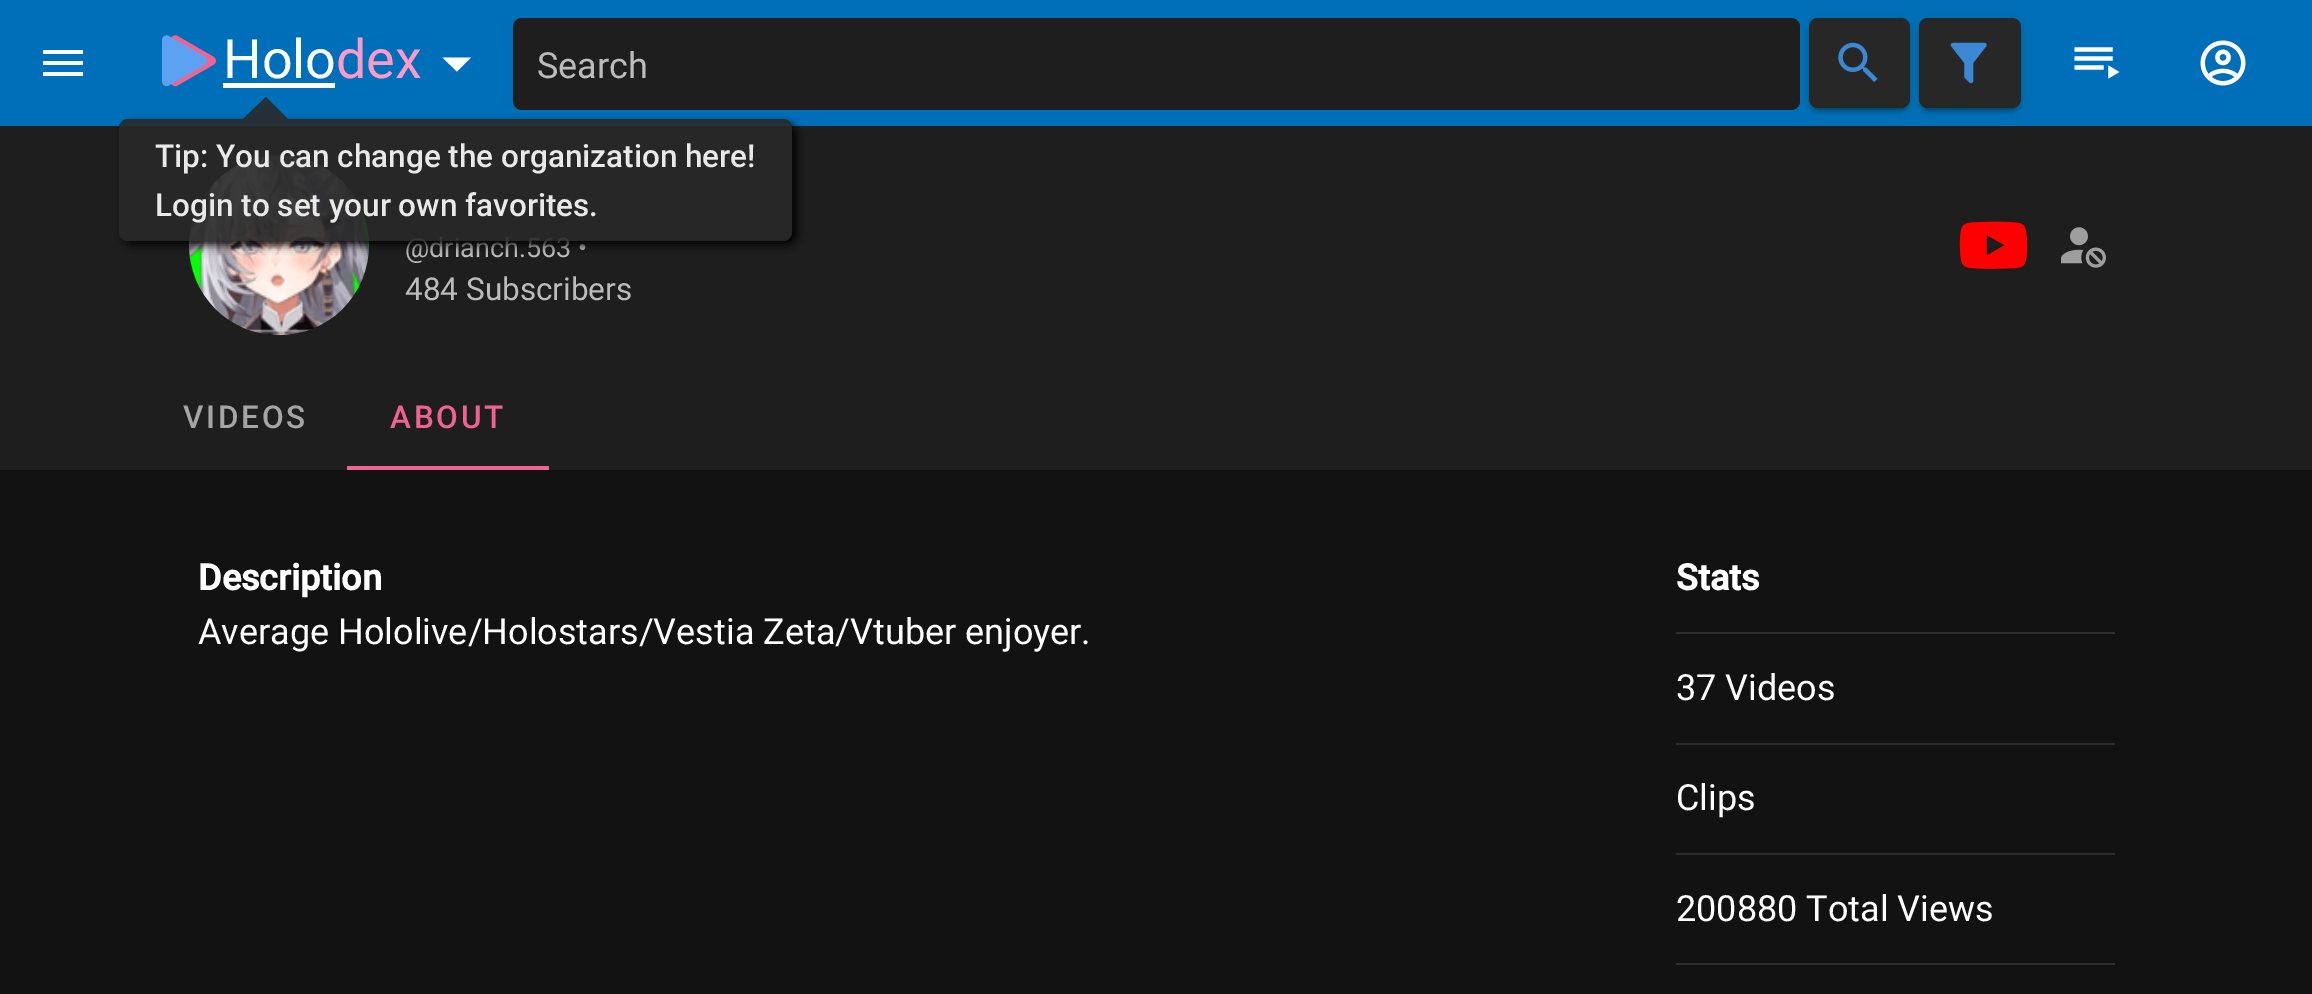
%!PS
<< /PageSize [2312 994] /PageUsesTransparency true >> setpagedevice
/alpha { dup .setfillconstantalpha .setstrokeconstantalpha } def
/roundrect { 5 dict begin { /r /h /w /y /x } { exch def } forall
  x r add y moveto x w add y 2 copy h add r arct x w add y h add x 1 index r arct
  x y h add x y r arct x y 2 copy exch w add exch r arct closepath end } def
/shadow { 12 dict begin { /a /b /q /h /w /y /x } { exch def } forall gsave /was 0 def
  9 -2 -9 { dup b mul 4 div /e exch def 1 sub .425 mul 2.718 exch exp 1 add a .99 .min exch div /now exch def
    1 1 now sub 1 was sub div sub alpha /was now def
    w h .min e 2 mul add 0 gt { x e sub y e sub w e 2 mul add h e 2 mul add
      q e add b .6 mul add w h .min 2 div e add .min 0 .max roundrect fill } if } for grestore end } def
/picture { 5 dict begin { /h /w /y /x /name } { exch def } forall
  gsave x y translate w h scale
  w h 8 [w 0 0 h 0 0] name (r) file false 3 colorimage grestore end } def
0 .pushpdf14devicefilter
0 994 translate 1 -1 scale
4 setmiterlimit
0.071 setgray
0 0 2312 994 rectfill
0 0.435 0.725 setrgbcolor
0 0 2312 126 rectfill
1 setgray
newpath 43 50 moveto 83 50 lineto 83 54 lineto 43 54 lineto 43 50 lineto 43 61 moveto 83 61 lineto 83 65 lineto 43 65 lineto 43 61 lineto 43 72 moveto 83 72 lineto 83 76 lineto 43 76 lineto closepath fill
(img1.rgb) 162 35 54 52 picture
/Roboto-Regular [54 0 0 -54 0 0] selectfont
223 78 moveto (Holo) show
223 83 112 5 rectfill
1 0.604 0.784 setrgbcolor
336 78 moveto (dex) show
1 setgray
newpath 442.5 57.5 moveto 457 71.5 lineto 471 57.5 lineto closepath fill
0.118 setgray
513 18 1287 92 9 roundrect fill
/Roboto-Regular [36 0 0 -36 0 0] selectfont
0.737 setgray
537 78 moveto (Search) show
0.118 setgray
0 126 2312 344 rectfill
0 setgray
1809 20 101 90 9 5.5 0.12 shadow
1809 23 101 90 9 2 0.14 shadow
1814 29 92 81 5 1 0.2 shadow
0.153 setgray
1809 18 101 90 9 roundrect fill
(img2.rgb) 1838 42 40 40 picture
0 setgray
1919 20 102 90 9 5.5 0.12 shadow
1919 23 102 90 9 2 0.14 shadow
1924 29 92 81 5 1 0.2 shadow
0.153 setgray
1919 18 102 90 9 roundrect fill
(img3.rgb) 1950 42 37 42 picture
(img4.rgb) 2074 47 46 32 picture
(img5.rgb) 2200 40 46 46 picture
(img6.rgb) 189 155 180 181 picture
/Roboto-Regular [27 0 0 -27 0 0] selectfont
0.737 setgray
405 257 moveto (@drianch.563 •) show
/Roboto-Regular [31.5 0 0 -31.5 0 0] selectfont
405 300 moveto (484 Subscribers) show
(img7.rgb) 1959 221 69 48 picture
(img8.rgb) 2061 227 45 41 picture
/Roboto-Medium [31.5 0 0 -31.5 0 0] selectfont
0.647 setgray
183 428 moveto 2.75 0 (VIDEOS) ashow
0.941 0.384 0.573 setrgbcolor
390 428 moveto 2.75 0 (ABOUT) ashow
347 466 202 4 rectfill
/Roboto-Bold [36 0 0 -36 0 0] selectfont
1 setgray
198 590 moveto (Description) show
/Roboto-Regular [36 0 0 -36 0 0] selectfont
198 644 moveto (Average Hololive/Holostars/Vestia Zeta/Vtuber enjoyer.) show
/Roboto-Bold [36 0 0 -36 0 0] selectfont
1676 590 moveto (Stats) show
0.18 setgray
1676 632 439 2 rectfill
/Roboto-Regular [36 0 0 -36 0 0] selectfont
1 setgray
1676 700 moveto (37 Videos) show
0.18 setgray
1676 743 439 2 rectfill
1 setgray
1676 810 moveto (Clips) show
0.18 setgray
1676 853 439 2 rectfill
1 setgray
1676 921 moveto (200880 Total Views) show
0.18 setgray
1676 963 439 2 rectfill
gsave
newpath 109 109 moveto 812 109 lineto 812 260 lineto 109 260 lineto closepath 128 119 moveto 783 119 lineto 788 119 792 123 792 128 curveto 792 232 lineto 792 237 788 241 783 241 curveto 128 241 lineto 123 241 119 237 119 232 curveto 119 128 lineto 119 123 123 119 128 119 curveto closepath eoclip newpath
0 setgray
124 124 673 121 9 4.5 0.9 shadow
grestore
0.9 alpha
0.157 setgray
119 119 673 122 9 roundrect fill
1 alpha
0.141 0.184 0.216 setrgbcolor
newpath 288 119 moveto 243 119 lineto 266 97 lineto closepath fill
/Roboto-Medium [31.5 0 0 -31.5 0 0] selectfont
0.914 setgray
155 167 moveto (Tip: You can change the organization here!) show
155 216 moveto (Login to set your own favorites.) show
.poppdf14devicefilter showpage
